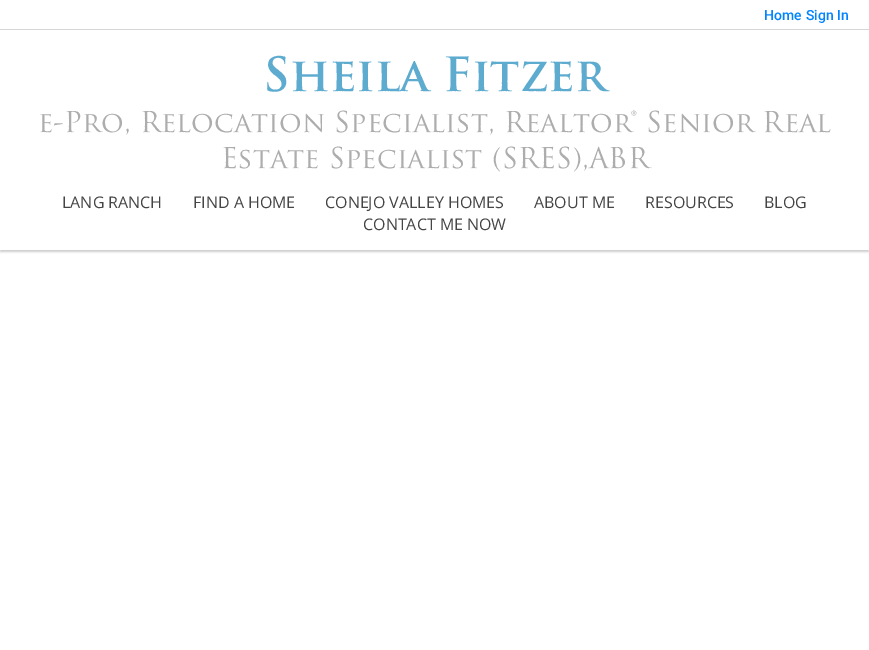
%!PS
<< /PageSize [869 650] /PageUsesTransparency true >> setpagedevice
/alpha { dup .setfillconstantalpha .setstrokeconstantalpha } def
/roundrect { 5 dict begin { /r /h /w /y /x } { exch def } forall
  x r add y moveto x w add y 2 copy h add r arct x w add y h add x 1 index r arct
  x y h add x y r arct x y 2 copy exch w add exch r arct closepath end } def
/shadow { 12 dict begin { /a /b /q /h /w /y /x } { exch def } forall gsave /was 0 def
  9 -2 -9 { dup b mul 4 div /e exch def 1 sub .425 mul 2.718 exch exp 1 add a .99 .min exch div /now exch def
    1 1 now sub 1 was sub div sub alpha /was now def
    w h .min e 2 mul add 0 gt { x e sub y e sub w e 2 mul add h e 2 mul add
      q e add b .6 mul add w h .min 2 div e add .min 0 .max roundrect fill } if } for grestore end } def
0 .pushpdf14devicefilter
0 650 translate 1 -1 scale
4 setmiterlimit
1 setgray
0 0 869 650 rectfill
gsave
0 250 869 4 rectclip
0.8 setgray
0 32 869 220 0 1 1 shadow
grestore
0.839 setgray
0 29 869 1 rectfill
/Roboto-Medium [14 0 0 -14 0 0] selectfont
0 0.518 1 setrgbcolor
764 20 moveto (Home) show
806 20 moveto (Sign In) show
/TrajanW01-Bold [46 0 0 -46 0 0] selectfont
0.369 0.671 0.816 setrgbcolor
263 91 moveto (Sheila Fitzer) show
/TrajanW01-Regular [28 0 0 -28 0 0] selectfont
0.678 setgray
38 132 moveto (e-Pro, Relocation Specialist, Realtor® Senior Real) show
221 168 moveto (Estate Specialist \(SRES\),ABR) show
/OpenSans-Regular [16 0 0 -16 0 0] selectfont
0.271 setgray
62 208 moveto (LANG RANCH) show
193 208 moveto (FIND A HOME) show
325 208 moveto (CONEJO VALLEY HOMES) show
534 208 moveto (ABOUT ME) show
645 208 moveto (RESOURCES) show
764 208 moveto (BLOG) show
363 230 moveto (CONTACT ME NOW) show
.poppdf14devicefilter showpage
